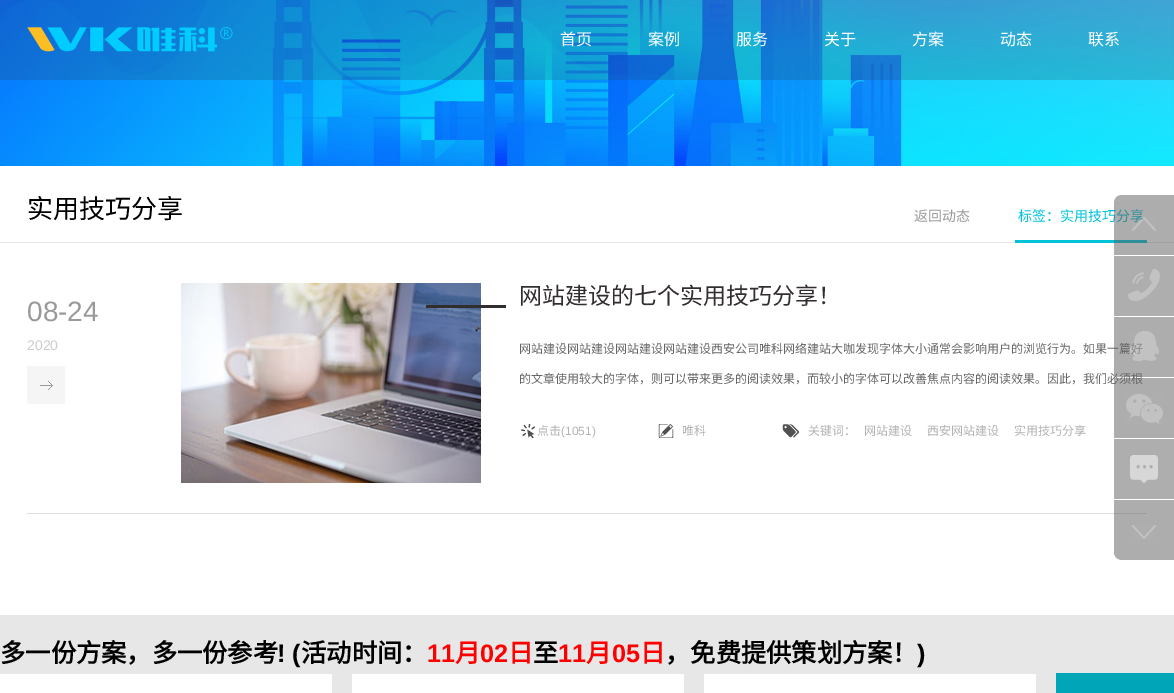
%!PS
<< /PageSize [1174 693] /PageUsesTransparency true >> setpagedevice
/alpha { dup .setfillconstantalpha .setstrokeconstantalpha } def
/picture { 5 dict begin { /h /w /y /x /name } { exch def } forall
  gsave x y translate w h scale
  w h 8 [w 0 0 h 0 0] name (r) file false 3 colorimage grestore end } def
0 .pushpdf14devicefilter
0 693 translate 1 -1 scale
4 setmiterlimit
1 setgray
0 0 1174 693 rectfill
(img1.rgb) 0 0 1174 166 picture
0.2 alpha
0.196 0.204 0.212 setrgbcolor
0 0 1174 80 rectfill
1 alpha
(img2.rgb) 27 27 206 25 picture
/NotoSansCJKSC-Regular [16 0 0 -16 0 0] selectfont
1 setgray
560 45 moveto (首页) show
648 45 moveto (案例) show
736 45 moveto (服务) show
824 45 moveto (关于) show
912 45 moveto (方案) show
1000 45 moveto (动态) show
1088 45 moveto (联系) show
0.902 setgray
0 242 1174 1 rectfill
0 0.765 0.851 setrgbcolor
1015 240 132 3 rectfill
/NotoSansCJKSC-Regular [14 0 0 -14 0 0] selectfont
1018 221 moveto (标签：实用技巧分享) show
0.5 alpha
0.361 setgray
newpath 1122 195 moveto 1174 195 lineto 1174 255 lineto 1114 255 lineto 1114 203 lineto 1114 198.5 1117.5 195 1122 195 curveto closepath fill
1 alpha
(img3.rgb) 1132 217 24 14 picture
0.682 setgray
1114 256 60 60 rectfill
(img4.rgb) 1128 269 32 32 picture
/NotoSansCJKSC-Regular [12 0 0 -12 0 0] selectfont
0.4 setgray
519 353 moveto (网站建设网站建设网站建设网站建设西安公司唯科网络建站大咖发现字体大小通常会影响用户的浏览行为。如果一篇好) show
519 383 moveto (的文章使用较大的字体，则可以带来更多的阅读效果，而较小的字体可以改善焦点内容的阅读效果。因此，我们必须根) show
0.5 alpha
0.361 setgray
1114 317 60 60 rectfill
1 alpha
(img5.rgb) 1129 331 30 30 picture
0.5 alpha
1114 378 60 60 rectfill
1 alpha
(img6.rgb) 1126 394 37 30 picture
0.682 setgray
1114 439 60 60 rectfill
(img7.rgb) 1130 455 28 28 picture
0.871 setgray
27 513 1120 1 rectfill
0.5 alpha
0.361 setgray
newpath 1114 500 moveto 1174 500 lineto 1174 560 lineto 1122 560 lineto 1117.5 560 1114 556.5 1114 552 curveto closepath fill
1 alpha
(img8.rgb) 1132 525 24 14 picture
/NotoSansCJKSC-Regular [26 0 0 -26 0 0] selectfont
0 setgray
27 218 moveto (实用技巧分享) show
/NotoSansCJKSC-Regular [14 0 0 -14 0 0] selectfont
0.6 setgray
914 221 moveto (返回动态) show
/LiberationSans-Regular [28 0 0 -28 0 0] selectfont
27 321 moveto (08-24) show
/LiberationSans-Regular [14 0 0 -14 0 0] selectfont
0.8 setgray
27 350 moveto (2020) show
0.961 setgray
27 366 38 38 rectfill
(img9.rgb) 40 381 13 9 picture
(img10.rgb) 181 283 300 200 picture
0.2 0.18 0.18 setrgbcolor
426 305 80 3 rectfill
/NotoSansCJKSC-Regular [23 0 0 -23 0 0] selectfont
519 304 moveto (网站建设的七个实用技巧分享！) show
(img11.rgb) 521 424 14 14 picture
/NotoSansCJKSC-Regular [12 0 0 -12 0 0] selectfont
0.698 setgray
537 435 moveto (点击) show
/LiberationSans-Regular [12 0 0 -12 0 0] selectfont
561 435 moveto (\(1051\)) show
(img12.rgb) 658 424 16 14 picture
/NotoSansCJKSC-Regular [12 0 0 -12 0 0] selectfont
682 435 moveto (唯科) show
(img13.rgb) 782 424 18 14 picture
808 435 moveto (关键词：) show
864 435 moveto (网站建设) show
927 435 moveto (西安网站建设) show
1014 435 moveto (实用技巧分享) show
0.906 setgray
0 615 1174 78 rectfill
/NotoSansCJKSC-Bold [25.25 0 0 -25.25 0 0] selectfont
0 setgray
0 662 moveto (多一份方案，多一份参考) show
/LiberationSans-Bold [25.25 0 0 -25.25 0 0] selectfont
277 662 moveto (! \() show
/NotoSansCJKSC-Bold [25.25 0 0 -25.25 0 0] selectfont
301 662 moveto (活动时间：) show
/LiberationSans-Bold [25.25 0 0 -25.25 0 0] selectfont
1 0 0 setrgbcolor
427 662 moveto (11) show
/NotoSansCJKSC-Bold [25.25 0 0 -25.25 0 0] selectfont
455 662 moveto (月) show
/LiberationSans-Bold [25.25 0 0 -25.25 0 0] selectfont
480 662 moveto (02) show
/NotoSansCJKSC-Bold [25.25 0 0 -25.25 0 0] selectfont
508 662 moveto (日) show
0 setgray
533 662 moveto (至) show
/LiberationSans-Bold [25.25 0 0 -25.25 0 0] selectfont
1 0 0 setrgbcolor
558 662 moveto (11) show
/NotoSansCJKSC-Bold [25.25 0 0 -25.25 0 0] selectfont
586 662 moveto (月) show
/LiberationSans-Bold [25.25 0 0 -25.25 0 0] selectfont
612 662 moveto (05) show
/NotoSansCJKSC-Bold [25.25 0 0 -25.25 0 0] selectfont
640 662 moveto (日) show
0 setgray
665 662 moveto (，免费提供策划方案！) show
/LiberationSans-Bold [25.25 0 0 -25.25 0 0] selectfont
917 662 moveto (\)) show
1 setgray
0 674 332 19 rectfill
352 674 332 19 rectfill
704 674 332 19 rectfill
0 0.647 0.722 setrgbcolor
1056 673 118 20 rectfill
.poppdf14devicefilter showpage
